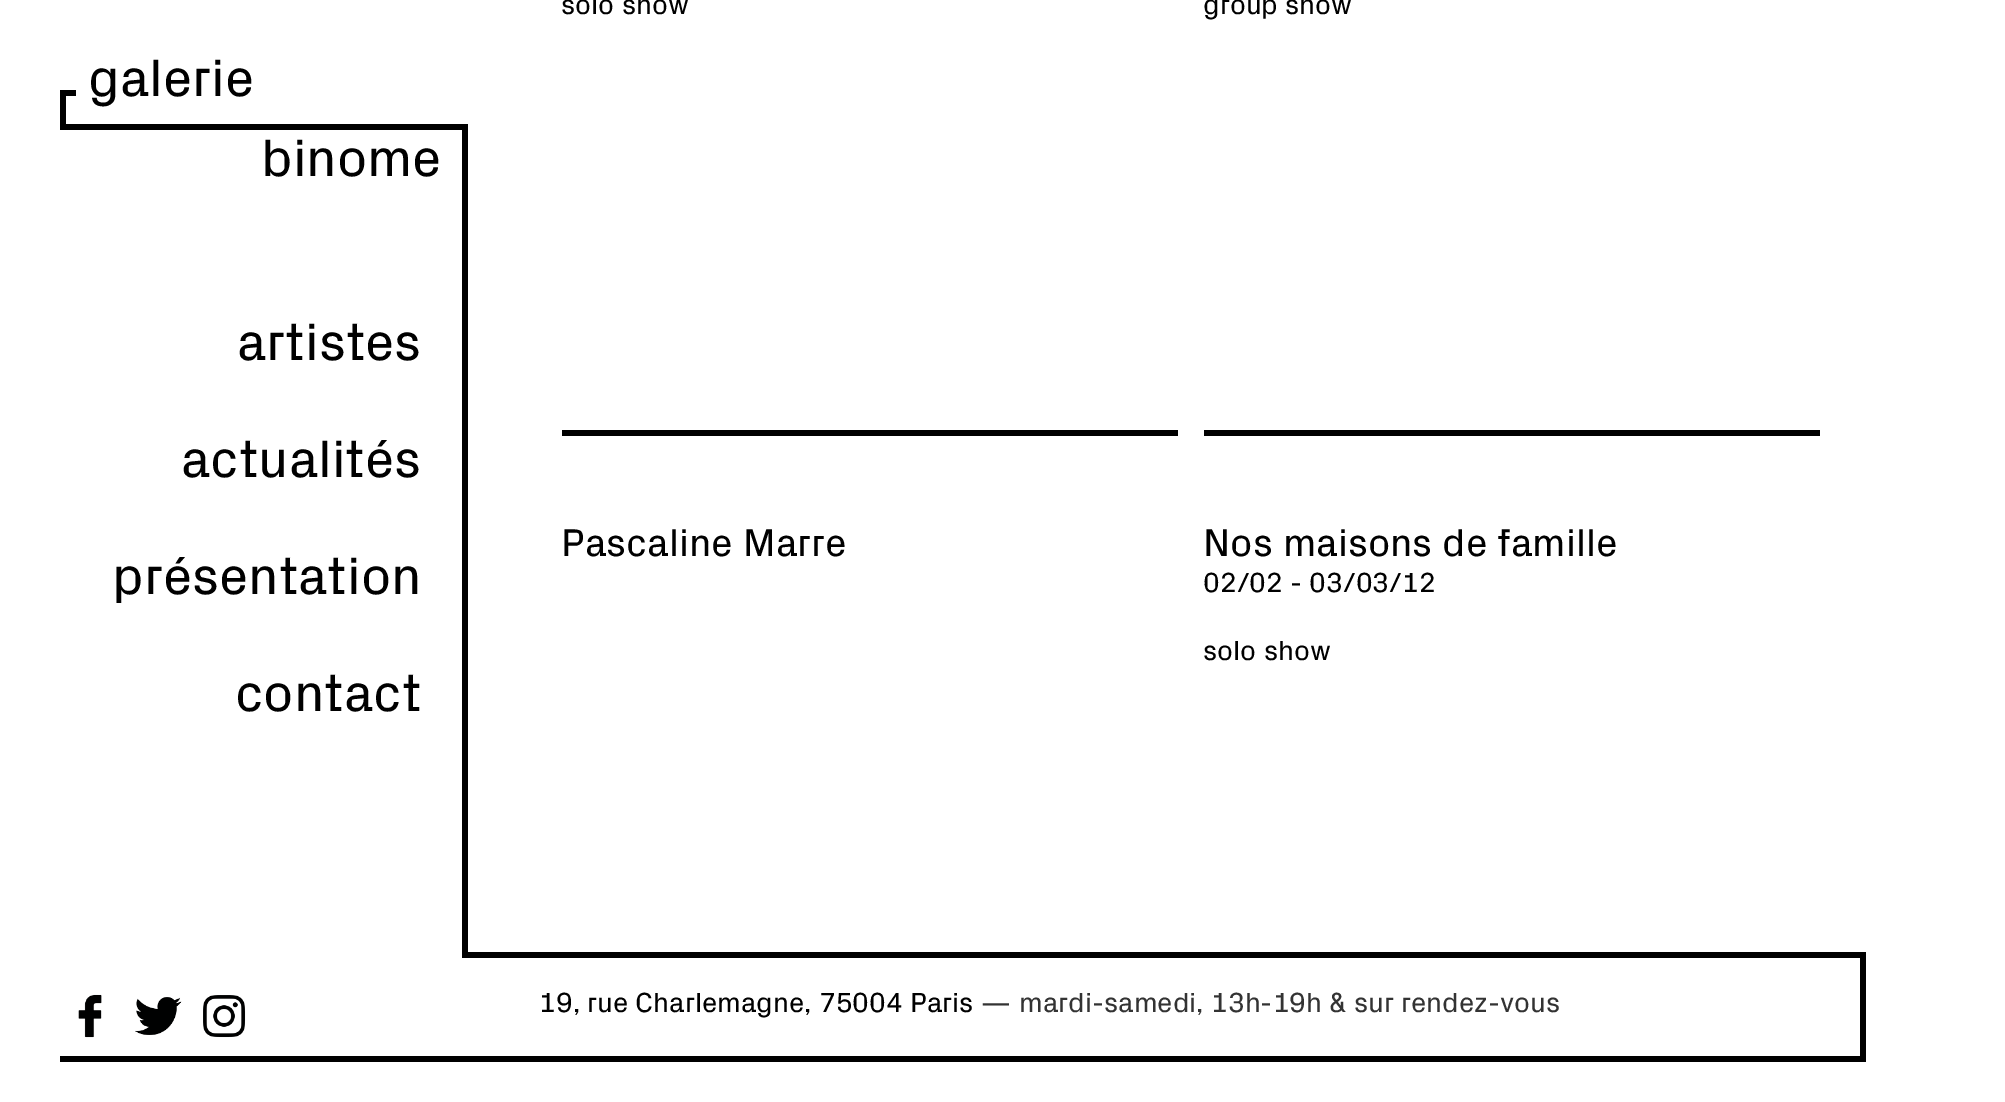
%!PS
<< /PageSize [2005 1102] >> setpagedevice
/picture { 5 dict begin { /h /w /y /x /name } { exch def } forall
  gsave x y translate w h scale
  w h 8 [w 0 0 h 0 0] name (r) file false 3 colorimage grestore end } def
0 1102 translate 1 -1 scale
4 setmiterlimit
1 setgray
0 0 2005 1102 rectfill
0 setgray
60 90 16 6 rectfill
/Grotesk-Regular [53.25 0 0 -53.25 0 0] selectfont
88 96 moveto (galerie) show
261 176 moveto (binome) show
60 90 6 40 rectfill
60 124 402 6 rectfill
237 360 moveto (artistes) show
181 477 moveto (actualités) show
112 594 moveto (présentation) show
235 711 moveto (contact) show
462 124 6 828 rectfill
562 430 616 6 rectfill
/Grotesk-Regular [28 0 0 -28 0 0] selectfont
561 14 moveto (solo show) show
1204 430 616 6 rectfill
1203 14 moveto (group show) show
/Grotesk-Regular [39.25 0 0 -39.25 0 0] selectfont
561 556 moveto (Pascaline Marre) show
1203 556 moveto (Nos maisons de famille) show
/Grotesk-Regular [28 0 0 -28 0 0] selectfont
1203 592 moveto (02/02 - 03/03/12) show
1203 660 moveto (solo show) show
(img1.rgb) 78 994 24 44 picture
(img2.rgb) 135 997 47 38 picture
(img3.rgb) 203 995 43 43 picture
462 952 1404 6 rectfill
539 1012 moveto (19, rue Charlemagne, 75004 Paris) show
0.2 setgray
980 1012 moveto (— mardi-samedi, 13h-19h & sur rendez-vous) show
0 setgray
60 1056 1806 6 rectfill
1860 952 6 110 rectfill
showpage
